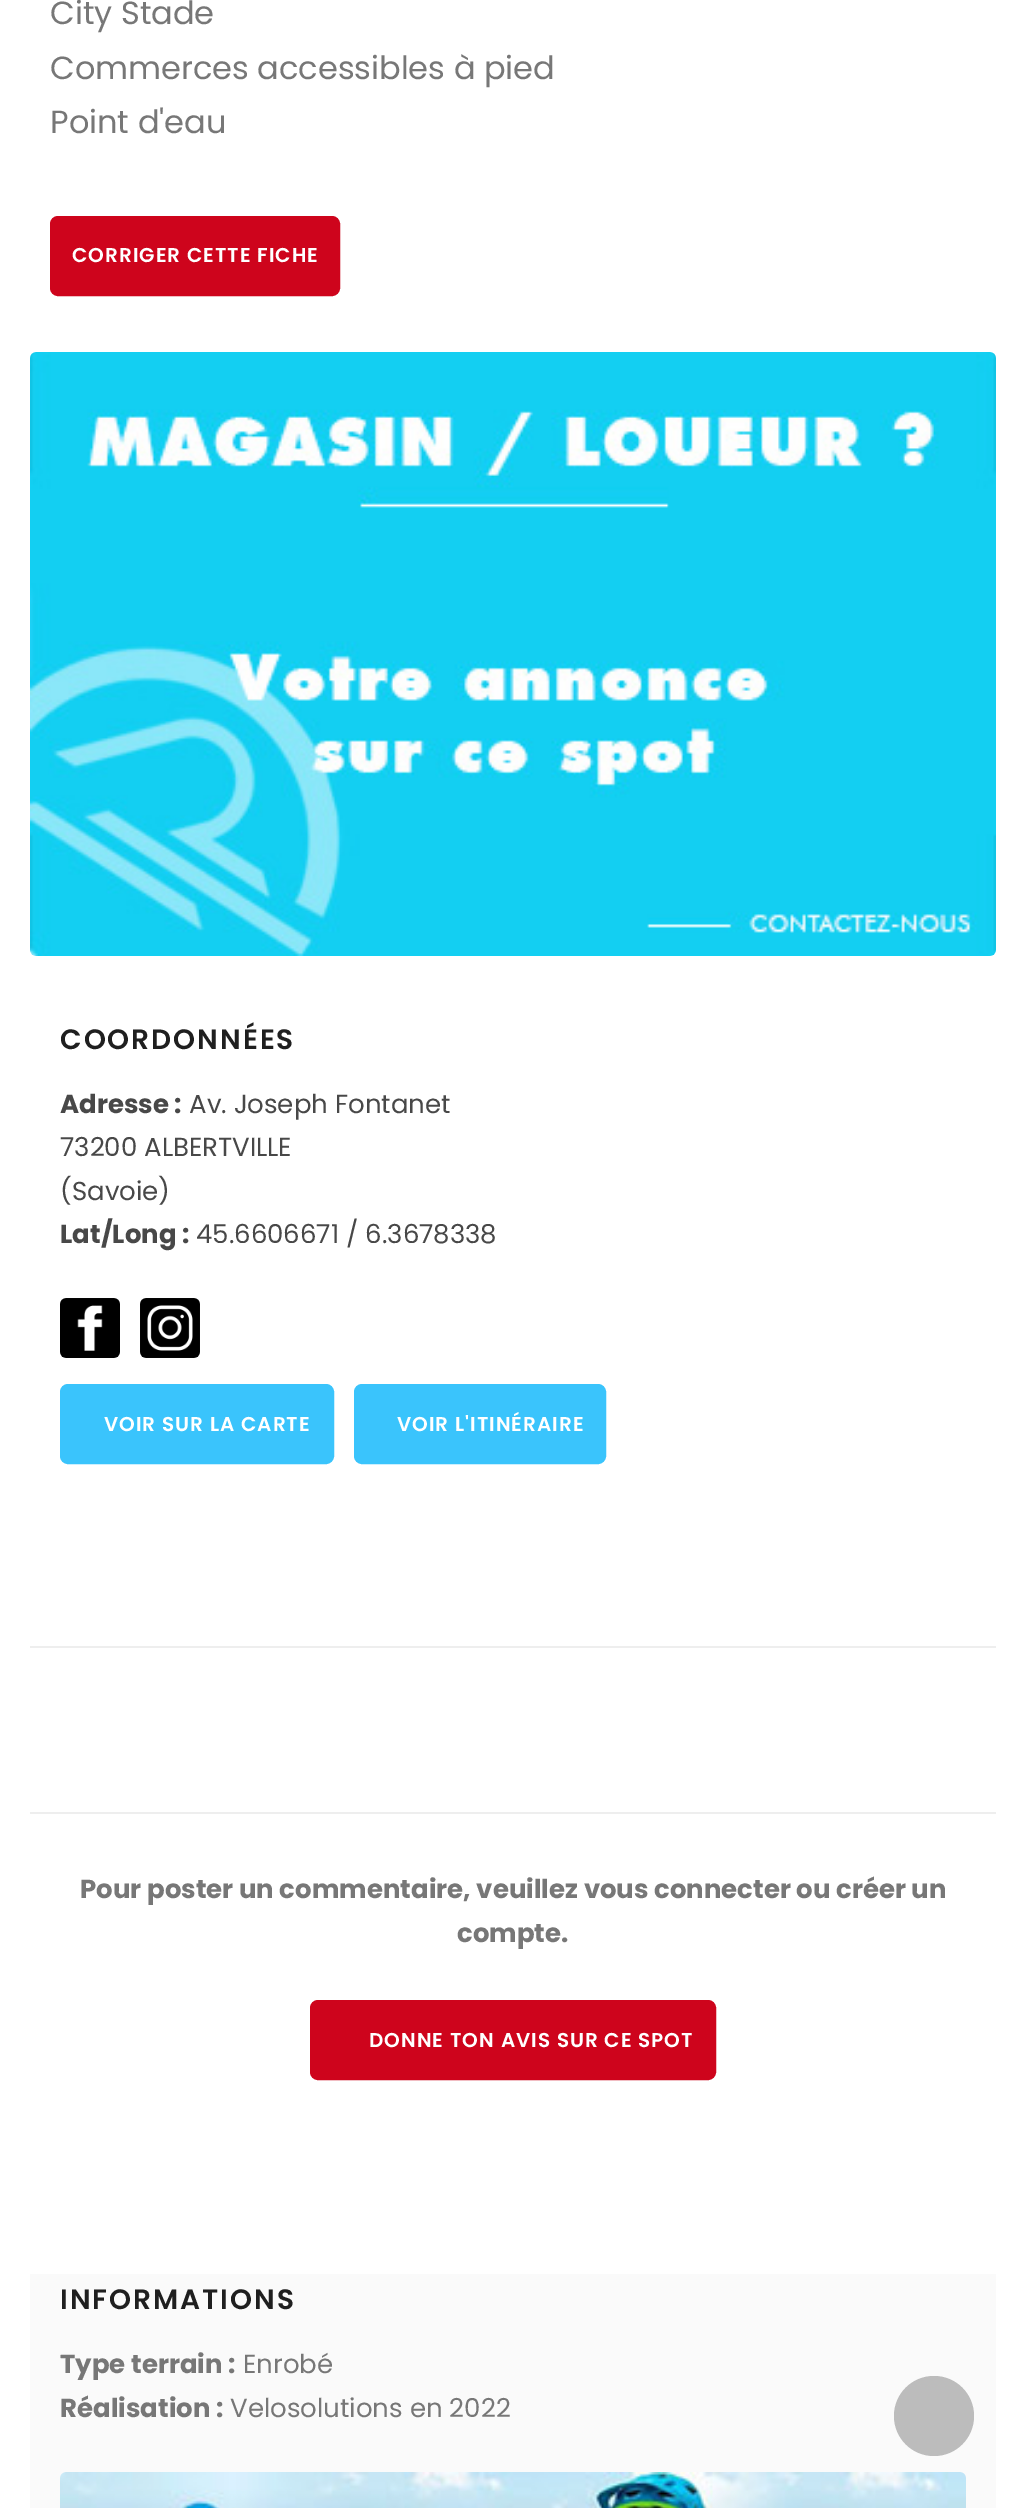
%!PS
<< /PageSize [1025 2508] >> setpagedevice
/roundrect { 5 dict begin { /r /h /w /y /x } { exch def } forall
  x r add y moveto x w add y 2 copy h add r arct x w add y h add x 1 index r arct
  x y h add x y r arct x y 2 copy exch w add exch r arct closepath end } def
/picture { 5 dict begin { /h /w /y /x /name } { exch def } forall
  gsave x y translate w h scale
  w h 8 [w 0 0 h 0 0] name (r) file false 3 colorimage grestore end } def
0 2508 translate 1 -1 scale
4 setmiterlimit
1 setgray
0 0 1025 2508 rectfill
/Poppins-Regular [32 0 0 -32 0 0] selectfont
0.467 setgray
50 24 moveto (City Stade) show
50 79 moveto (Commerces accessibles à pied) show
50 133 moveto (Point d'eau) show
0.808 0.016 0.11 setrgbcolor
51 217 288 78 7 roundrect gsave fill grestore
2 setlinewidth
stroke
/Poppins-SemiBold [20 0 0 -20 0 0] selectfont
1 setgray
72 262 moveto 1 0 (CORRIGER CETTE FICHE) ashow
(img1.rgb) 30 352 966 604 picture
/Poppins-SemiBold [28 0 0 -28 0 0] selectfont
0.122 setgray
60 1049 moveto 2 0 (COORDONNÉES) ashow
/Poppins-Bold [26 0 0 -26 0 0] selectfont
0.282 setgray
60 1113 moveto (Adresse :) show
/Poppins-Regular [26 0 0 -26 0 0] selectfont
189 1113 moveto (Av. Joseph Fontanet) show
60 1156 moveto (73200 ALBERTVILLE) show
60 1200 moveto (\(Savoie\)) show
/Poppins-Bold [26 0 0 -26 0 0] selectfont
60 1243 moveto (Lat/Long :) show
/Poppins-Regular [26 0 0 -26 0 0] selectfont
196 1243 moveto (45.6606671 / 6.3678338) show
(img2.rgb) 60 1298 60 60 picture
(img3.rgb) 140 1298 60 60 picture
0.227 0.769 0.988 setrgbcolor
61 1385 272 78 7 roundrect gsave fill grestore
stroke
/Poppins-SemiBold [20 0 0 -20 0 0] selectfont
1 setgray
104 1431 moveto 1 0 (VOIR SUR LA CARTE) ashow
0.227 0.769 0.988 setrgbcolor
355 1385 250 78 7 roundrect gsave fill grestore
stroke
1 setgray
397 1431 moveto 1 0 (VOIR L'ITINÉRAIRE) ashow
0.933 setgray
30 1646 966 2 rectfill
30 1812 966 2 rectfill
/Poppins-Bold [26 0 0 -26 0 0] selectfont
0.467 setgray
80 1898 moveto (Pour poster un commentaire, veuillez vous connecter ou créer un) show
457 1942 moveto (compte.) show
0.808 0.016 0.11 setrgbcolor
311 2001 404 78 7 roundrect gsave fill grestore
stroke
/Poppins-SemiBold [20 0 0 -20 0 0] selectfont
1 setgray
369 2047 moveto 1 0 (DONNE TON AVIS SUR CE SPOT) ashow
0.98 setgray
30 2274 966 234 rectfill
/Poppins-SemiBold [28 0 0 -28 0 0] selectfont
0.122 setgray
60 2309 moveto 2 0 (INFORMATIONS) ashow
/Poppins-Bold [26 0 0 -26 0 0] selectfont
0.467 setgray
60 2373 moveto (Type terrain :) show
/Poppins-Regular [26 0 0 -26 0 0] selectfont
243 2373 moveto (Enrobé) show
/Poppins-Bold [26 0 0 -26 0 0] selectfont
60 2417 moveto (Réalisation :) show
/Poppins-Regular [26 0 0 -26 0 0] selectfont
230 2417 moveto (Velosolutions en 2022) show
(img4.rgb) 60 2472 906 36 picture
0.737 setgray
newpath 934 2416 40 0 360 arc closepath fill
showpage
